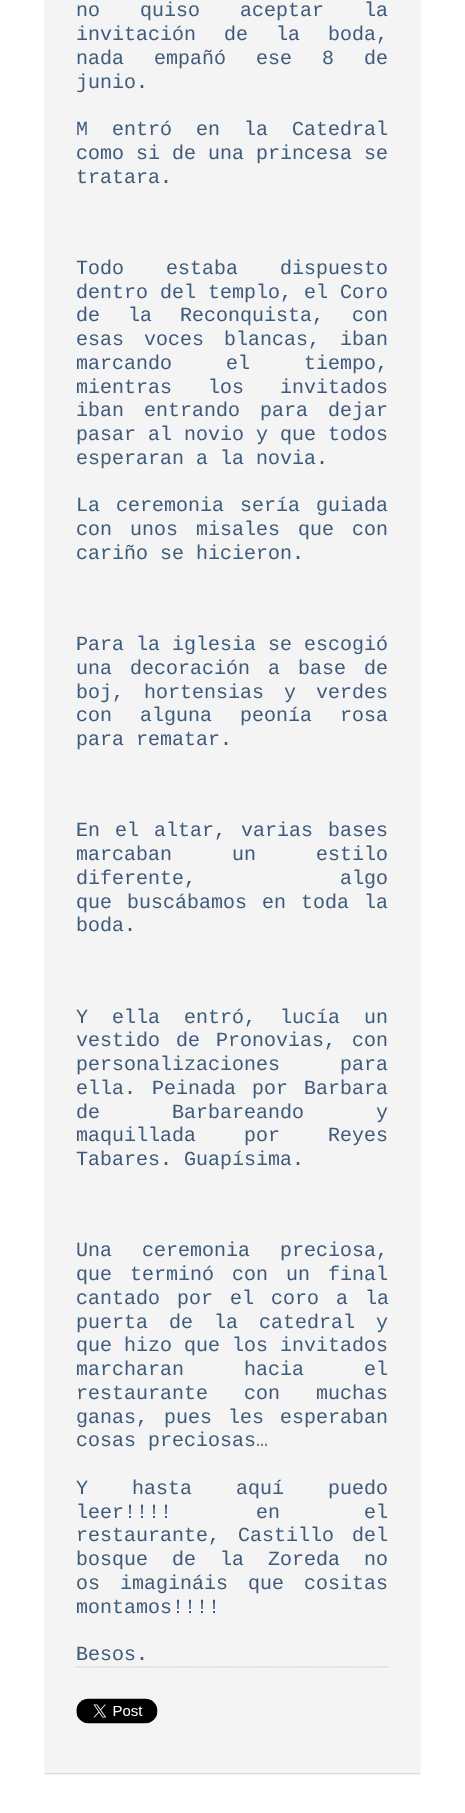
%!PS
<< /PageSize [465 1813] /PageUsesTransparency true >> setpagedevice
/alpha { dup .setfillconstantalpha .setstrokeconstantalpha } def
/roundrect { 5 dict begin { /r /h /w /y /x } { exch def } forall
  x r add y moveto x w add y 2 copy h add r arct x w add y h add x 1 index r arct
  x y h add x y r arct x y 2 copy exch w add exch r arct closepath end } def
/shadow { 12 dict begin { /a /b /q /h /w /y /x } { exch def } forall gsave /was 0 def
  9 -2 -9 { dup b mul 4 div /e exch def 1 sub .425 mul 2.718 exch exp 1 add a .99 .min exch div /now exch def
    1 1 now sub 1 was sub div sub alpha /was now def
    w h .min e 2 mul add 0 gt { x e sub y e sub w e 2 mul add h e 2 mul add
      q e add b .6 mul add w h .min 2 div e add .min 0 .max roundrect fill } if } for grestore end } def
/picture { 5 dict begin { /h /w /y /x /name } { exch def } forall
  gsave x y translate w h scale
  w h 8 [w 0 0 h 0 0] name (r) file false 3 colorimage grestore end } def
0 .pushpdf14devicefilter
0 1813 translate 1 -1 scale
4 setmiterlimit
1 setgray
0 0 465 1813 rectfill
0 setgray
45 -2 375 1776 0 0.5 0.17 shadow
0.957 setgray
45 0 375 1773 rectfill
/LiberationMono-Regular [20 0 0 -20 0 0] selectfont
0.243 0.357 0.482 setrgbcolor
76 16 moveto 28 0 32 (no quiso aceptar la) widthshow
76 40 moveto 16 0 32 (invitación de la boda,) widthshow
76 64 moveto 18 0 32 (nada empañó ese 8 de) widthshow
76 88 moveto (junio.) show
76 135 moveto 12 0 32 (M entró en la Catedral) widthshow
76 159 moveto (como si de una princesa se) show
76 183 moveto (tratara.) show
76 274 moveto 30 0 32 (Todo estaba dispuesto) widthshow
76 298 moveto (dentro del templo, el Coro) show
76 321 moveto 16 0 32 (de la Reconquista, con) widthshow
76 345 moveto 8 0 32 (esas voces blancas, iban) widthshow
76 369 moveto 42 0 32 (marcando el tiempo,) widthshow
76 393 moveto 24 0 32 (mientras los invitados) widthshow
76 416 moveto 8 0 32 (iban entrando para dejar) widthshow
76 440 moveto (pasar al novio y que todos) show
76 464 moveto (esperaran a la novia.) show
76 511 moveto 4 0 32 (La ceremonia sería guiada) widthshow
76 535 moveto 6 0 32 (con unos misales que con) widthshow
76 559 moveto (cariño se hicieron.) show
76 650 moveto (Para la iglesia se escogió) show
76 674 moveto 6 0 32 (una decoración a base de) widthshow
76 698 moveto 8 0 32 (boj, hortensias y verdes) widthshow
76 721 moveto 16 0 32 (con alguna peonía rosa) widthshow
76 745 moveto (para rematar.) show
76 836 moveto 3 0 32 (En el altar, varias bases) widthshow
76 860 moveto 48 0 32 (marcaban un estilo) widthshow
76 884 moveto 132 0 32 (diferente, algo) widthshow
76 908 moveto 3 0 32 (que buscábamos en toda la) widthshow
76 931 moveto (boda.) show
76 1023 moveto 12 0 32 (Y ella entró, lucía un) widthshow
76 1046 moveto 4 0 32 (vestido de Pronovias, con) widthshow
76 1070 moveto 48 0 32 (personalizaciones para) widthshow
76 1094 moveto 4 0 32 (ella. Peinada por Barbara) widthshow
76 1118 moveto 60 0 32 (de Barbareando y) widthshow
76 1141 moveto 36 0 32 (maquillada por Reyes) widthshow
76 1165 moveto (Tabares. Guapísima.) show
76 1256 moveto 18 0 32 (Una ceremonia preciosa,) widthshow
76 1280 moveto 6 0 32 (que terminó con un final) widthshow
76 1304 moveto 5 0 32 (cantado por el coro a la) widthshow
76 1328 moveto 9 0 32 (puerta de la catedral y) widthshow
76 1351 moveto (que hizo que los invitados) show
76 1375 moveto 48 0 32 (marcharan hacia el) widthshow
76 1399 moveto 24 0 32 (restaurante con muchas) widthshow
76 1423 moveto 4 0 32 (ganas, pues les esperaban) widthshow
76 1446 moveto (cosas preciosas…) show
76 1494 moveto 32 0 32 (Y hasta aquí puedo) widthshow
76 1518 moveto 72 0 32 (leer!!!! en el) widthshow
76 1541 moveto 6 0 32 (restaurante, Castillo del) widthshow
76 1565 moveto 12 0 32 (bosque de la Zoreda no) widthshow
76 1589 moveto 8 0 32 (os imagináis que cositas) widthshow
76 1613 moveto (montamos!!!!) show
76 1660 moveto (Besos.) show
0.8 setgray
1.2 setlinewidth
[1.25 1.25] 0 setdash
newpath 76 1667 moveto 389 1667 lineto stroke
(img1.rgb) 76 1698 82 26 picture
.poppdf14devicefilter showpage
